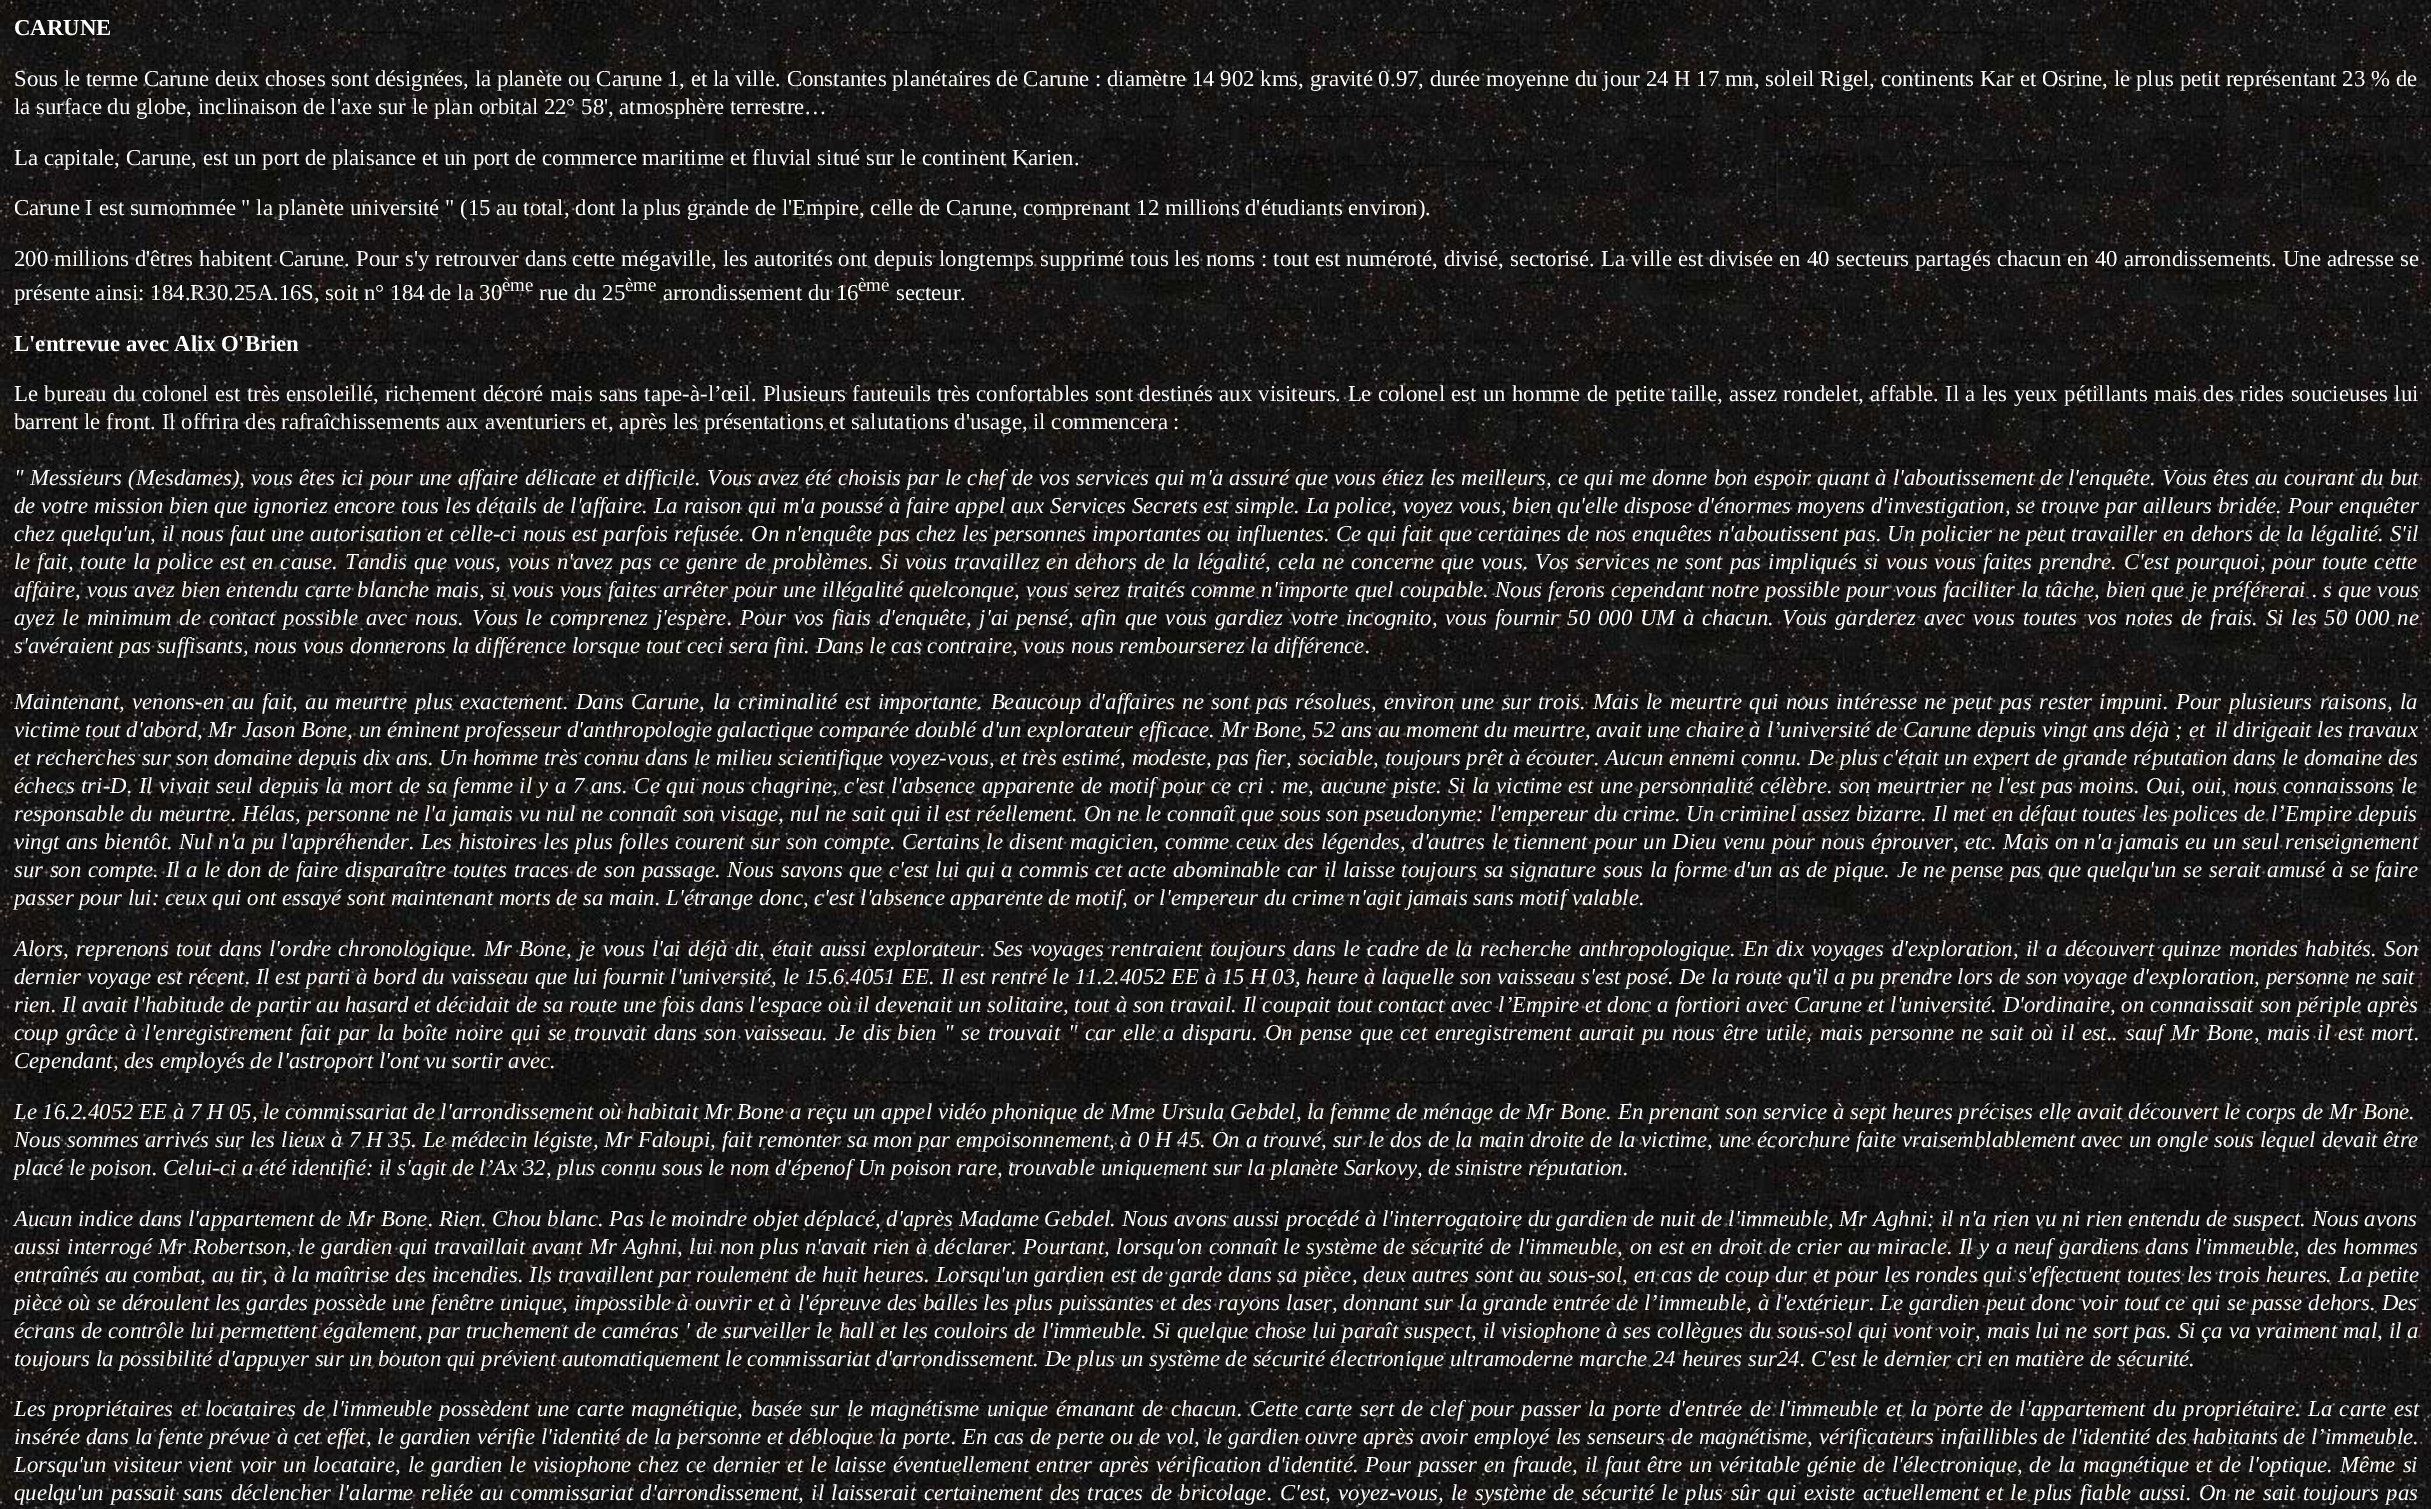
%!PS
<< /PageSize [2431 1509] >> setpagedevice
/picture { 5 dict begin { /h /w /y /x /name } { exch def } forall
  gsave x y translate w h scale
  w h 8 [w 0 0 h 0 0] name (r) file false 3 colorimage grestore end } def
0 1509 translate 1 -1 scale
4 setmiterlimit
1 setgray
0 0 2431 1509 rectfill
(img1.rgb) 0 0 2431 1509 picture
/LiberationSerif-Bold [22.75 0 0 -22.75 0 0] selectfont
14 35 moveto (CARUNE) show
/LiberationSerif-Regular [22.75 0 0 -22.75 0 0] selectfont
14 86 moveto (Sous le terme Carune deux choses sont désignées, la planète ou Carune 1, et la ville. Constantes planétaires de Carune : diamètre 14 902 kms, gravité 0.97, durée moyenne du jour 24 H 17 mn, soleil Rigel, continents Kar et Osrine, le plus petit représentant 23 % de) show
14 114 moveto (la surface du globe, inclinaison de l'axe sur le plan orbital 22° 58', atmosphère terrestre…) show
14 165 moveto (La capitale, Carune, est un port de plaisance et un port de commerce maritime et fluvial situé sur le continent Karien.) show
14 215 moveto (Carune I est surnommée " la planète université " \(15 au total, dont la plus grande de l'Empire, celle de Carune, comprenant 12 millions d'étudiants environ\).) show
14 266 moveto 0.35 0 32 (200 millions d'êtres habitent Carune. Pour s'y retrouver dans cette mégaville, les autorités ont depuis longtemps supprimé tous les noms : tout est numéroté, divisé, sectorisé. La ville est divisée en 40 secteurs partagés chacun en 40 arrondissements. Une adresse se) widthshow
14 300 moveto (présente ainsi: 184.R30.25A.16S, soit n° 184 de la 30) show
/LiberationSerif-Regular [19 0 0 -19 0 0] selectfont
502 291 moveto (ème) show
/LiberationSerif-Regular [22.75 0 0 -22.75 0 0] selectfont
539 300 moveto (rue du 25) show
/LiberationSerif-Regular [19 0 0 -19 0 0] selectfont
625 291 moveto (ème) show
/LiberationSerif-Regular [22.75 0 0 -22.75 0 0] selectfont
663 300 moveto (arrondissement du 16) show
/LiberationSerif-Regular [19 0 0 -19 0 0] selectfont
858 291 moveto (ème) show
/LiberationSerif-Regular [22.75 0 0 -22.75 0 0] selectfont
896 300 moveto (secteur.) show
/LiberationSerif-Bold [22.75 0 0 -22.75 0 0] selectfont
14 351 moveto (L'entrevue avec Alix O'Brien) show
/LiberationSerif-Regular [22.75 0 0 -22.75 0 0] selectfont
14 401 moveto 0.7 0 32 (Le bureau du colonel est très ensoleillé, richement décoré mais sans tape-à-l’œil. Plusieurs fauteuils très confortables sont destinés aux visiteurs. Le colonel est un homme de petite taille, assez rondelet, affable. Il a les yeux pétillants mais des rides soucieuses lui) widthshow
14 429 moveto (barrent le front. Il offrira des rafraîchissements aux aventuriers et, après les présentations et salutations d'usage, il commencera :) show
/LiberationSerif-Italic [22.75 0 0 -22.75 0 0] selectfont
14 485 moveto 0.5 0 32 (" Messieurs \(Mesdames\), vous êtes ici pour une affaire délicate et difficile. Vous avez été choisis par le chef de vos services qui m'a assuré que vous étiez les meilleurs, ce qui me donne bon espoir quant à l'aboutissement de l'enquête. Vous êtes au courant du but) widthshow
14 513 moveto 0.2 0 32 (de votre mission bien que ignoriez encore tous les détails de l'affaire. La raison qui m'a poussé à faire appel aux Services Secrets est simple. La police, voyez vous, bien qu'elle dispose d'énormes moyens d'investigation, se trouve par ailleurs bridée. Pour enquêter) widthshow
14 541 moveto 0.4 0 32 (chez quelqu'un, il nous faut une autorisation et celle-ci nous est parfois refusée. On n'enquête pas chez les personnes importantes ou influentes. Ce qui fait que certaines de nos enquêtes n'aboutissent pas. Un policier ne peut travailler en dehors de la légalité. S'il) widthshow
14 569 moveto 1.25 0 32 (le fait, toute la police est en cause. Tandis que vous, vous n'avez pas ce genre de problèmes. Si vous travaillez en dehors de la légalité, cela ne concerne que vous. Vos services ne sont pas impliqués si vous vous faites prendre. C'est pourquoi, pour toute cette) widthshow
14 597 moveto 0.5 0 32 (affaire, vous avez bien entendu carte blanche mais, si vous vous faites arrêter pour une illégalité quelconque, vous serez traités comme n'importe quel coupable. Nous ferons cependant notre possible pour vous faciliter la tâche, bien que je préférerai . s que vous) widthshow
14 625 moveto 2.2 0 32 (ayez le minimum de contact possible avec nous. Vous le comprenez j'espère. Pour vos fiais d'enquête, j'ai pensé, afin que vous gardiez votre incognito, vous fournir 50 000 UM à chacun. Vous garderez avec vous toutes) widthshow
2087 625 moveto 2.2 0 32 (vos notes de frais. Si les 50 000 ne) widthshow
14 653 moveto (s'avéraient pas suffisants, nous vous donnerons la différence lorsque tout ceci sera fini. Dans le cas contraire, vous nous rembourserez la différence.) show
14 709 moveto 1.75 0 32 (Maintenant, venons-en au fait, au meurtre plus exactement. Dans Carune, la criminalité est importante. Beaucoup d'affaires ne sont pas résolues, environ une sur trois. Mais le meurtre qui nous intéresse ne peut pas rester impuni. Pour plusieurs raisons, la) widthshow
14 737 moveto (victime tout d'abord, Mr Jason Bone, un éminent professeur d'anthropologie galactique comparée doublé d'un explorateur efficace. Mr Bone, 52 ans au moment du meurtre, avait une chaire à l’université de Carune depuis vingt ans déjà ; et) show
2215 737 moveto (il dirigeait les travaux) show
14 765 moveto (et recherches sur son domaine depuis dix ans. Un homme très connu dans le milieu scientifique voyez-vous, et très estimé, modeste, pas fier, sociable, toujours prêt à écouter. Aucun ennemi connu. De plus c'était un expert de grande réputation dans le domaine des) show
14 793 moveto 0.8 0 32 (échecs tri-D. Il vivait seul depuis la mort de sa femme il y a 7 ans. Ce qui nous chagrine, c'est l'absence apparente de motif pour ce cri . me, aucune piste. Si la victime est une personnalité célèbre. son meurtrier ne l'est pas moins. Oui, oui, nous connaissons le) widthshow
14 821 moveto 0.25 0 32 (responsable du meurtre. Hélas, personne ne l'a jamais vu nul ne connaît son visage, nul ne sait qui il est réellement. On ne le connaît que sous son pseudonyme: l'empereur du crime. Un criminel assez bizarre. Il met en défaut toutes les polices de l’Empire depuis) widthshow
14 849 moveto 0.65 0 32 (vingt ans bientôt. Nul n'a pu l'appréhender. Les histoires les plus folles courent sur son compte. Certains le disent magicien, comme ceux des légendes, d'autres le tiennent pour un Dieu venu pour nous éprouver, etc. Mais on n'a jamais eu un seul renseignement) widthshow
14 877 moveto 0.85 0 32 (sur son compte. Il a le don de faire disparaître toutes traces de son passage. Nous savons que c'est lui qui a commis cet acte abominable car il laisse toujours sa signature sous la forme d'un as de pique. Je ne pense pas que quelqu'un se serait amusé à se faire) widthshow
14 905 moveto (passer pour lui: ceux qui ont essayé sont maintenant morts de sa main. L'étrange donc, c'est l'absence apparente de motif, or l'empereur du crime n'agit jamais sans motif valable.) show
14 956 moveto 1.7 0 32 (Alors, reprenons tout dans l'ordre chronologique. Mr Bone, je vous l'ai déjà dit, était aussi explorateur. Ses voyages rentraient toujours dans le cadre de la recherche anthropologique. En dix voyages d'exploration, il a découvert quinze mondes habités. Son) widthshow
14 984 moveto (dernier voyage est récent. Il est parti à bord du vaisseau que lui fournit l'université, le 15.6.4051 EE. Il est rentré le 11.2.4052 EE à 15 H 03, heure à laquelle son vaisseau s'est posé. De la route qu'il a pu prendre lors de son voyage d'exploration, personne ne sait) show
14 1012 moveto 0.2 0 32 (rien. Il avait l'habitude de partir au hasard et décidait de sa route une fois dans l'espace où il devenait un solitaire, tout à son travail. Il coupait tout contact avec l’Empire et donc a fortiori avec Carune et l'université. D'ordinaire, on connaissait son périple après) widthshow
14 1040 moveto 1.95 0 32 (coup grâce à l'enregistrement fait par la boîte noire qui se trouvait dans son vaisseau. Je dis bien " se trouvait " car elle a disparu. On pense que cet enregistrement aurait pu nous être utile, mais personne ne sait où il est.. sauf Mr Bone, mais il est mort.) widthshow
14 1068 moveto (Cependant, des employés de l'astroport l'ont vu sortir avec.) show
14 1119 moveto (Le 16.2.4052 EE à 7 H 05, le commissariat de l'arrondissement où habitait Mr Bone a reçu un appel vidéo phonique de Mme Ursula Gebdel, la femme de ménage de Mr Bone. En prenant son service à sept heures précises elle avait découvert le corps de Mr Bone.) show
14 1147 moveto 0.25 0 32 (Nous sommes arrivés sur les lieux à 7 H 35. Le médecin légiste, Mr Faloupi, fait remonter sa mon par empoisonnement, à 0 H 45. On a trouvé, sur le dos de la main droite de la victime, une écorchure faite vraisemblablement avec un ongle sous lequel devait être) widthshow
14 1175 moveto (placé le poison. Celui-ci a été identifié: il s'agit de l’Ax 32, plus connu sous le nom d'épenof Un poison rare, trouvable uniquement sur la planète Sarkovy, de sinistre réputation.) show
14 1226 moveto 0.1 0 32 (Aucun indice dans l'appartement de Mr Bone. Rien. Chou blanc. Pas le moindre objet déplacé, d'après Madame Gebdel. Nous avons aussi procédé à l'interrogatoire du gardien de nuit de l'immeuble, Mr Aghni: il n'a rien vu ni rien entendu de suspect. Nous avons) widthshow
14 1254 moveto 0.8 0 32 (aussi interrogé Mr Robertson, le gardien qui travaillait avant Mr Aghni, lui non plus n'avait rien à déclarer. Pourtant, lorsqu'on connaît le système de sécurité de l'immeuble, on est en droit de crier au miracle. Il y a neuf gardiens dans l'immeuble, des hommes) widthshow
14 1282 moveto 0.3 0 32 (entraînés au combat, au tir, à la maîtrise des incendies. Ils travaillent par roulement de huit heures. Lorsqu'un gardien est de garde dans sa pièce, deux autres sont au sous-sol, en cas de coup dur et pour les rondes qui s'effectuent toutes les trois heures. La petite) widthshow
14 1310 moveto 0.35 0 32 (pièce où se déroulent les gardes possède une fenêtre unique, impossible à ouvrir et à l'épreuve des balles les plus puissantes et des rayons laser, donnant sur la grande entrée de l’immeuble, à l'extérieur. Le gardien peut donc voir tout ce qui se passe dehors. Des) widthshow
14 1338 moveto 0.3 0 32 (écrans de contrôle lui permettent également, par truchement de caméras ' de surveiller le hall et les couloirs de l'immeuble. Si quelque chose lui paraît suspect, il visiophone à ses collègues du sous-sol qui vont voir, mais lui ne sort pas. Si ça va vraiment mal, il a) widthshow
14 1366 moveto (toujours la possibilité d'appuyer sur un bouton qui prévient automatiquement le commissariat d'arrondissement. De plus un système de sécurité électronique ultramoderne marche 24 heures sur24. C'est le dernier cri en matière de sécurité.) show
14 1416 moveto 1.85 0 32 (Les propriétaires et locataires de l'immeuble possèdent une carte magnétique, basée sur le magnétisme unique émanant de chacun. Cette carte sert de clef pour passer la porte d'entrée de l'immeuble et la porte de l'appartement du propriétaire. La carte est) widthshow
14 1444 moveto 0.35 0 32 (insérée dans la fente prévue à cet effet, le gardien vérifie l'identité de la personne et débloque la porte. En cas de perte ou de vol, le gardien ouvre après avoir employé les senseurs de magnétisme, vérificateurs infaillibles de l'identité des habitants de l’immeuble.) widthshow
14 1472 moveto 1.35 0 32 (Lorsqu'un visiteur vient voir un locataire, le gardien le visiophone chez ce dernier et le laisse éventuellement entrer après vérification d'identité. Pour passer en fraude, il faut être un véritable génie de l'électronique, de la magnétique et de l'optique. Même si) widthshow
14 1500 moveto 1.75 0 32 (quelqu'un passait sans déclencher l'alarme reliée au commissariat d'arrondissement, il laisserait certainement des traces de bricolage. C'est, voyez-vous, le système de sécurité le plus sûr qui existe actuellement et le plus fiable aussi. On ne sait toujours pas) widthshow
showpage
